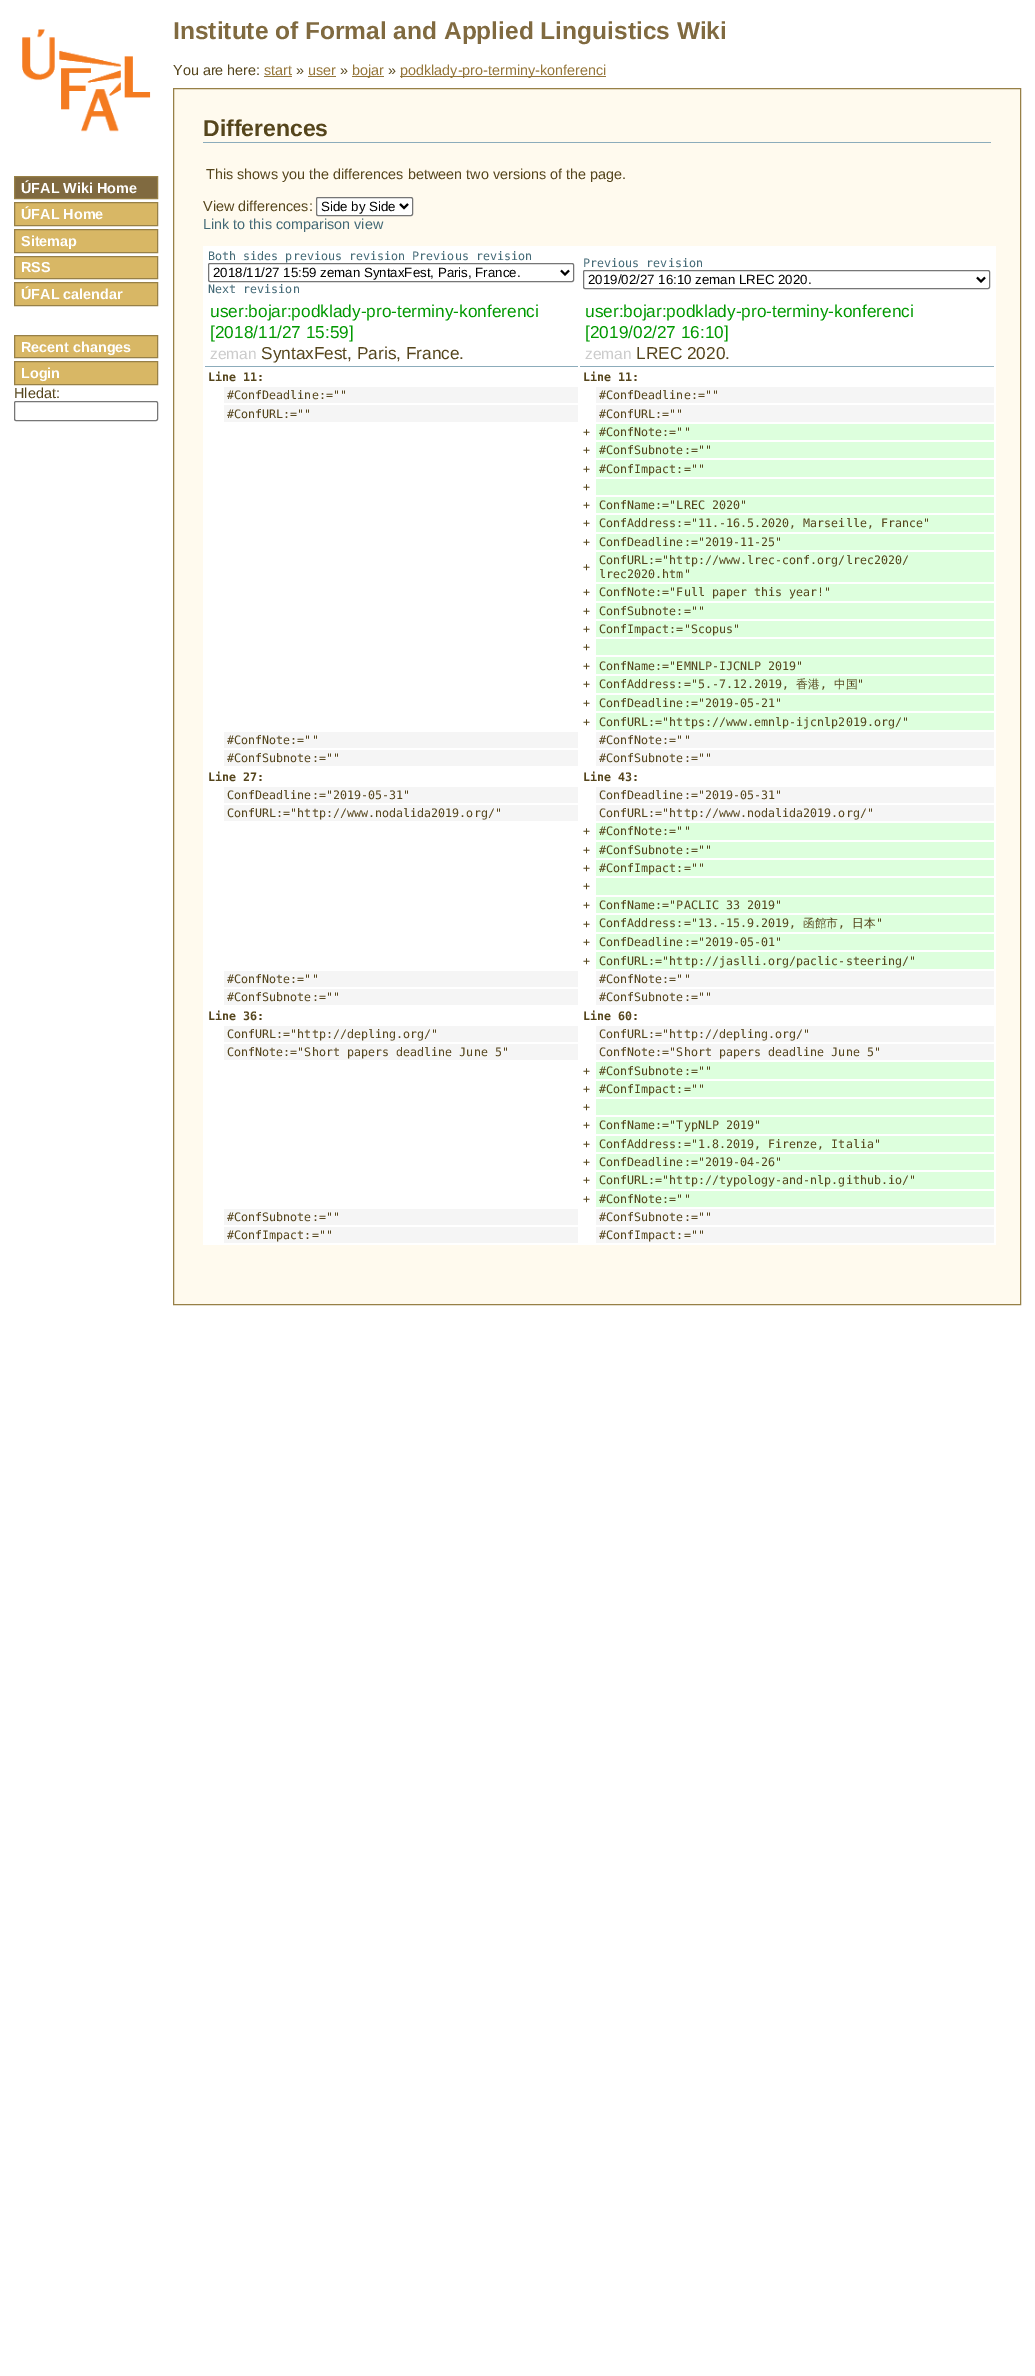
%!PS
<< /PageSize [1035 2376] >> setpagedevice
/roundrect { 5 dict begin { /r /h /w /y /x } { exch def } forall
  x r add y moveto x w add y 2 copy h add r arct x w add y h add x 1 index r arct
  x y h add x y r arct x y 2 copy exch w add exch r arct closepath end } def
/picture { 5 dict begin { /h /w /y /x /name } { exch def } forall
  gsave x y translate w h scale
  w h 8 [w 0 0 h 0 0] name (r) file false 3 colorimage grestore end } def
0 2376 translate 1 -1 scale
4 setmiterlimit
1 setgray
0 0 1035 2376 rectfill
(img1.rgb) 22 29 129 103 picture
/LiberationSans-Bold [24.5 0 0 -24.5 0 0] selectfont
0.502 0.416 0.251 setrgbcolor
173 39 moveto (Institute of Formal and Applied Linguistics Wiki) show
/LiberationSans-Regular [14.4 0 0 -14.4 0 0] selectfont
0.333 0.271 0.11 setrgbcolor
173 75 moveto (You are here:) show
0.584 0.463 0.227 setrgbcolor
264 75 moveto (start) show
264 76 28 1 rectfill
0.333 0.271 0.11 setrgbcolor
296 75 moveto (») show
0.584 0.463 0.227 setrgbcolor
308 75 moveto (user) show
308 76 28 1 rectfill
0.333 0.271 0.11 setrgbcolor
340 75 moveto (») show
0.584 0.463 0.227 setrgbcolor
352 76 32 1 rectfill
352 75 moveto (bojar) show
0.333 0.271 0.11 setrgbcolor
388 75 moveto (») show
0.584 0.463 0.227 setrgbcolor
400 76 206 1 rectfill
400 75 moveto (podklady-pro-terminy-konferenci) show
0.502 0.416 0.251 setrgbcolor
newpath 14.5 176.5 moveto 157.5 176.5 lineto 157.5 198.5 lineto 14.5 198.5 lineto closepath gsave fill grestore
0.592 0.502 0.278 setrgbcolor
stroke
/LiberationSans-Bold [14.4 0 0 -14.4 0 0] selectfont
1 setgray
21 193 moveto (ÚFAL Wiki Home) show
0.847 0.718 0.396 setrgbcolor
newpath 14.5 202.5 moveto 157.5 202.5 lineto 157.5 225.5 lineto 14.5 225.5 lineto closepath gsave fill grestore
0.592 0.502 0.278 setrgbcolor
stroke
1 setgray
21 219 moveto (ÚFAL Home) show
0.847 0.718 0.396 setrgbcolor
newpath 14.5 229.5 moveto 157.5 229.5 lineto 157.5 252.5 lineto 14.5 252.5 lineto closepath gsave fill grestore
0.592 0.502 0.278 setrgbcolor
stroke
1 setgray
21 246 moveto (Sitemap) show
0.847 0.718 0.396 setrgbcolor
newpath 14.5 256.5 moveto 157.5 256.5 lineto 157.5 278.5 lineto 14.5 278.5 lineto closepath gsave fill grestore
0.592 0.502 0.278 setrgbcolor
stroke
1 setgray
21 272 moveto (RSS) show
0.847 0.718 0.396 setrgbcolor
newpath 14.5 282.5 moveto 157.5 282.5 lineto 157.5 305.5 lineto 14.5 305.5 lineto closepath gsave fill grestore
0.592 0.502 0.278 setrgbcolor
stroke
1 setgray
21 299 moveto (ÚFAL calendar) show
0.847 0.718 0.396 setrgbcolor
newpath 14.5 335.5 moveto 157.5 335.5 lineto 157.5 357.5 lineto 14.5 357.5 lineto closepath gsave fill grestore
0.592 0.502 0.278 setrgbcolor
stroke
1 setgray
21 352 moveto (Recent changes) show
0.847 0.718 0.396 setrgbcolor
newpath 14.5 361.5 moveto 157.5 361.5 lineto 157.5 384.5 lineto 14.5 384.5 lineto closepath gsave fill grestore
0.592 0.502 0.278 setrgbcolor
stroke
1 setgray
21 378 moveto (Login) show
/LiberationSans-Regular [14.4 0 0 -14.4 0 0] selectfont
0.333 0.271 0.11 setrgbcolor
14 398 moveto (Hledat:) show
0.463 setgray
14.5 401.5 143 19 1.5 roundrect stroke
1 0.98 0.933 setrgbcolor
newpath 173.5 88.5 moveto 1020.5 88.5 lineto 1020.5 1304.5 lineto 173.5 1304.5 lineto closepath gsave fill grestore
0.592 0.502 0.278 setrgbcolor
stroke
0.549 0.675 0.733 setrgbcolor
203 142 788 1 rectfill
/LiberationSans-Bold [23 0 0 -23 0 0] selectfont
0.333 0.271 0.11 setrgbcolor
203 136 moveto (Differences) show
/LiberationSans-Regular [14.4 0 0 -14.4 0 0] selectfont
206 179 moveto (This shows you the differences between two versions of the page.) show
203 211 moveto (View differences:) show
1 setgray
316.5 197.5 96 18 1.5 roundrect gsave fill grestore
0.463 setgray
stroke
0 setgray
2 setlinewidth
newpath 400 204 moveto 404 208 lineto 408 204 lineto stroke
/LiberationSans-Regular [13.3 0 0 -13.3 0 0] selectfont
321 211 moveto (Side by Side) show
/LiberationSans-Regular [14.4 0 0 -14.4 0 0] selectfont
0.263 0.412 0.463 setrgbcolor
203 229 moveto (Link to this comparison view) show
1 setgray
203 246 793 999 rectfill
/DejaVuSansMono-Regular [11.7 0 0 -11.7 0 0] selectfont
0.263 0.412 0.463 setrgbcolor
208 260 moveto (Both sides previous revision Previous revision) show
0.463 setgray
1 setlinewidth
208.5 263.5 365 18 1.5 roundrect stroke
0 setgray
2 setlinewidth
newpath 561 270.5 moveto 565 274.5 lineto 569 270.5 lineto stroke
/LiberationSans-Regular [13.3 0 0 -13.3 0 0] selectfont
213 277 moveto (2018/11/27 15:59 zeman SyntaxFest, Paris, France.) show
/DejaVuSansMono-Regular [11.7 0 0 -11.7 0 0] selectfont
0.263 0.412 0.463 setrgbcolor
208 293 moveto (Next revision) show
583 267 moveto (Previous revision) show
0.463 setgray
1 setlinewidth
583.5 270.5 406 18 1.5 roundrect stroke
0 setgray
2 setlinewidth
newpath 977 277.5 moveto 981 281.5 lineto 985 277.5 lineto stroke
/LiberationSans-Regular [13.3 0 0 -13.3 0 0] selectfont
588 284 moveto (2019/02/27 16:10 zeman LREC 2020.) show
0.549 0.675 0.733 setrgbcolor
205 366 373 1 rectfill
/LiberationSans-Regular [17.25 0 0 -17.25 0 0] selectfont
0 0.6 0 setrgbcolor
210 317 moveto (user:bojar:podklady-pro-terminy-konferenci) show
210 338 moveto ([2018/11/27 15:59]) show
/LiberationSans-Regular [15.5 0 0 -15.5 0 0] selectfont
0.8 setgray
210 359 moveto (zeman) show
/LiberationSans-Regular [17.25 0 0 -17.25 0 0] selectfont
0.333 0.271 0.11 setrgbcolor
261 359 moveto (SyntaxFest, Paris, France.) show
0.549 0.675 0.733 setrgbcolor
580 366 414 1 rectfill
0 0.6 0 setrgbcolor
585 317 moveto (user:bojar:podklady-pro-terminy-konferenci) show
585 338 moveto ([2019/02/27 16:10]) show
/LiberationSans-Regular [15.5 0 0 -15.5 0 0] selectfont
0.8 setgray
585 359 moveto (zeman) show
/LiberationSans-Regular [17.25 0 0 -17.25 0 0] selectfont
0.333 0.271 0.11 setrgbcolor
636 359 moveto (LREC 2020.) show
/DejaVuSansMono-Bold [11.7 0 0 -11.7 0 0] selectfont
208 381 moveto (Line 11:) show
583 381 moveto (Line 11:) show
0.961 setgray
224 387 354 16 rectfill
/DejaVuSansMono-Regular [11.7 0 0 -11.7 0 0] selectfont
0.333 0.271 0.11 setrgbcolor
227 399 moveto (#ConfDeadline:="") show
0.961 setgray
596 387 398 16 rectfill
0.333 0.271 0.11 setrgbcolor
599 399 moveto (#ConfDeadline:="") show
0.961 setgray
224 405 354 17 rectfill
0.333 0.271 0.11 setrgbcolor
227 418 moveto (#ConfURL:="") show
0.961 setgray
596 405 398 17 rectfill
0.333 0.271 0.11 setrgbcolor
599 418 moveto (#ConfURL:="") show
583 436 moveto (+) show
0.867 1 0.867 setrgbcolor
596 424 398 16 rectfill
0.333 0.271 0.11 setrgbcolor
599 436 moveto (#ConfNote:="") show
583 454 moveto (+) show
0.867 1 0.867 setrgbcolor
596 442 398 16 rectfill
0.333 0.271 0.11 setrgbcolor
599 454 moveto (#ConfSubnote:="") show
583 473 moveto (+) show
0.867 1 0.867 setrgbcolor
596 460 398 17 rectfill
0.333 0.271 0.11 setrgbcolor
599 473 moveto (#ConfImpact:="") show
583 491 moveto (+) show
0.867 1 0.867 setrgbcolor
596 479 398 16 rectfill
0.333 0.271 0.11 setrgbcolor
583 509 moveto (+) show
0.867 1 0.867 setrgbcolor
596 497 398 16 rectfill
0.333 0.271 0.11 setrgbcolor
599 509 moveto (ConfName:="LREC 2020") show
583 527 moveto (+) show
0.867 1 0.867 setrgbcolor
596 515 398 17 rectfill
0.333 0.271 0.11 setrgbcolor
599 527 moveto (ConfAddress:="11.-16.5.2020, Marseille, France") show
583 546 moveto (+) show
0.867 1 0.867 setrgbcolor
596 534 398 16 rectfill
0.333 0.271 0.11 setrgbcolor
599 546 moveto (ConfDeadline:="2019-11-25") show
583 571 moveto (+) show
0.867 1 0.867 setrgbcolor
596 552 398 30 rectfill
0.333 0.271 0.11 setrgbcolor
599 564 moveto (ConfURL:="http://www.lrec-conf.org/lrec2020/) show
599 578 moveto (lrec2020.htm") show
583 596 moveto (+) show
0.867 1 0.867 setrgbcolor
596 584 398 17 rectfill
0.333 0.271 0.11 setrgbcolor
599 596 moveto (ConfNote:="Full paper this year!") show
583 615 moveto (+) show
0.867 1 0.867 setrgbcolor
596 603 398 16 rectfill
0.333 0.271 0.11 setrgbcolor
599 615 moveto (ConfSubnote:="") show
583 633 moveto (+) show
0.867 1 0.867 setrgbcolor
596 621 398 16 rectfill
0.333 0.271 0.11 setrgbcolor
599 633 moveto (ConfImpact:="Scopus") show
583 651 moveto (+) show
0.867 1 0.867 setrgbcolor
596 639 398 16 rectfill
0.333 0.271 0.11 setrgbcolor
583 670 moveto (+) show
0.867 1 0.867 setrgbcolor
596 657 398 17 rectfill
0.333 0.271 0.11 setrgbcolor
599 670 moveto (ConfName:="EMNLP-IJCNLP 2019") show
583 688 moveto (+) show
0.867 1 0.867 setrgbcolor
596 676 398 17 rectfill
0.333 0.271 0.11 setrgbcolor
599 688 moveto (ConfAddress:="5.-7.12.2019,) show
/WenQuanYiZenHei-Medium [11.7 0 0 -11.7 0 0] selectfont
796 688 moveto (香港) show
834 688 moveto (中国) show
/DejaVuSansMono-Regular [11.7 0 0 -11.7 0 0] selectfont
857 688 moveto (") show
820 688 moveto (,) show
583 707 moveto (+) show
0.867 1 0.867 setrgbcolor
596 695 398 16 rectfill
0.333 0.271 0.11 setrgbcolor
599 707 moveto (ConfDeadline:="2019-05-21") show
583 726 moveto (+) show
0.867 1 0.867 setrgbcolor
596 713 398 17 rectfill
0.333 0.271 0.11 setrgbcolor
599 726 moveto (ConfURL:="https://www.emnlp-ijcnlp2019.org/") show
0.961 setgray
224 732 354 16 rectfill
0.333 0.271 0.11 setrgbcolor
227 744 moveto (#ConfNote:="") show
0.961 setgray
596 732 398 16 rectfill
0.333 0.271 0.11 setrgbcolor
599 744 moveto (#ConfNote:="") show
0.961 setgray
224 750 354 16 rectfill
0.333 0.271 0.11 setrgbcolor
227 762 moveto (#ConfSubnote:="") show
0.961 setgray
596 750 398 16 rectfill
0.333 0.271 0.11 setrgbcolor
599 762 moveto (#ConfSubnote:="") show
/DejaVuSansMono-Bold [11.7 0 0 -11.7 0 0] selectfont
208 781 moveto (Line 27:) show
583 781 moveto (Line 43:) show
0.961 setgray
224 787 354 16 rectfill
/DejaVuSansMono-Regular [11.7 0 0 -11.7 0 0] selectfont
0.333 0.271 0.11 setrgbcolor
227 799 moveto (ConfDeadline:="2019-05-31") show
0.961 setgray
596 787 398 16 rectfill
0.333 0.271 0.11 setrgbcolor
599 799 moveto (ConfDeadline:="2019-05-31") show
0.961 setgray
224 805 354 16 rectfill
0.333 0.271 0.11 setrgbcolor
227 817 moveto (ConfURL:="http://www.nodalida2019.org/") show
0.961 setgray
596 805 398 16 rectfill
0.333 0.271 0.11 setrgbcolor
599 817 moveto (ConfURL:="http://www.nodalida2019.org/") show
583 835 moveto (+) show
0.867 1 0.867 setrgbcolor
596 823 398 17 rectfill
0.333 0.271 0.11 setrgbcolor
599 835 moveto (#ConfNote:="") show
583 854 moveto (+) show
0.867 1 0.867 setrgbcolor
596 842 398 16 rectfill
0.333 0.271 0.11 setrgbcolor
599 854 moveto (#ConfSubnote:="") show
583 872 moveto (+) show
0.867 1 0.867 setrgbcolor
596 860 398 16 rectfill
0.333 0.271 0.11 setrgbcolor
599 872 moveto (#ConfImpact:="") show
583 890 moveto (+) show
0.867 1 0.867 setrgbcolor
596 878 398 17 rectfill
0.333 0.271 0.11 setrgbcolor
583 909 moveto (+) show
0.867 1 0.867 setrgbcolor
596 897 398 16 rectfill
0.333 0.271 0.11 setrgbcolor
599 909 moveto (ConfName:="PACLIC 33 2019") show
583 928 moveto (+) show
0.867 1 0.867 setrgbcolor
596 915 398 17 rectfill
0.333 0.271 0.11 setrgbcolor
599 927 moveto (ConfAddress:="13.-15.9.2019,) show
/WenQuanYiZenHei-Medium [11.7 0 0 -11.7 0 0] selectfont
803 927 moveto (函館市) show
852 927 moveto (日本) show
/DejaVuSansMono-Regular [11.7 0 0 -11.7 0 0] selectfont
876 927 moveto (") show
838 927 moveto (,) show
583 946 moveto (+) show
0.867 1 0.867 setrgbcolor
596 934 398 16 rectfill
0.333 0.271 0.11 setrgbcolor
599 946 moveto (ConfDeadline:="2019-05-01") show
583 965 moveto (+) show
0.867 1 0.867 setrgbcolor
596 952 398 17 rectfill
0.333 0.271 0.11 setrgbcolor
599 965 moveto (ConfURL:="http://jaslli.org/paclic-steering/") show
0.961 setgray
224 971 354 16 rectfill
0.333 0.271 0.11 setrgbcolor
227 983 moveto (#ConfNote:="") show
0.961 setgray
596 971 398 16 rectfill
0.333 0.271 0.11 setrgbcolor
599 983 moveto (#ConfNote:="") show
0.961 setgray
224 989 354 16 rectfill
0.333 0.271 0.11 setrgbcolor
227 1001 moveto (#ConfSubnote:="") show
0.961 setgray
596 989 398 16 rectfill
0.333 0.271 0.11 setrgbcolor
599 1001 moveto (#ConfSubnote:="") show
/DejaVuSansMono-Bold [11.7 0 0 -11.7 0 0] selectfont
208 1020 moveto (Line 36:) show
583 1020 moveto (Line 60:) show
0.961 setgray
224 1026 354 16 rectfill
/DejaVuSansMono-Regular [11.7 0 0 -11.7 0 0] selectfont
0.333 0.271 0.11 setrgbcolor
227 1038 moveto (ConfURL:="http://depling.org/") show
0.961 setgray
596 1026 398 16 rectfill
0.333 0.271 0.11 setrgbcolor
599 1038 moveto (ConfURL:="http://depling.org/") show
0.961 setgray
224 1044 354 16 rectfill
0.333 0.271 0.11 setrgbcolor
227 1056 moveto (ConfNote:="Short papers deadline June 5") show
0.961 setgray
596 1044 398 16 rectfill
0.333 0.271 0.11 setrgbcolor
599 1056 moveto (ConfNote:="Short papers deadline June 5") show
583 1075 moveto (+) show
0.867 1 0.867 setrgbcolor
596 1062 398 17 rectfill
0.333 0.271 0.11 setrgbcolor
599 1075 moveto (#ConfSubnote:="") show
583 1093 moveto (+) show
0.867 1 0.867 setrgbcolor
596 1081 398 16 rectfill
0.333 0.271 0.11 setrgbcolor
599 1093 moveto (#ConfImpact:="") show
583 1111 moveto (+) show
0.867 1 0.867 setrgbcolor
596 1099 398 16 rectfill
0.333 0.271 0.11 setrgbcolor
583 1129 moveto (+) show
0.867 1 0.867 setrgbcolor
596 1117 398 17 rectfill
0.333 0.271 0.11 setrgbcolor
599 1129 moveto (ConfName:="TypNLP 2019") show
583 1148 moveto (+) show
0.867 1 0.867 setrgbcolor
596 1136 398 16 rectfill
0.333 0.271 0.11 setrgbcolor
599 1148 moveto (ConfAddress:="1.8.2019, Firenze, Italia") show
583 1166 moveto (+) show
0.867 1 0.867 setrgbcolor
596 1154 398 16 rectfill
0.333 0.271 0.11 setrgbcolor
599 1166 moveto (ConfDeadline:="2019-04-26") show
583 1184 moveto (+) show
0.867 1 0.867 setrgbcolor
596 1172 398 17 rectfill
0.333 0.271 0.11 setrgbcolor
599 1184 moveto (ConfURL:="http://typology-and-nlp.github.io/") show
583 1203 moveto (+) show
0.867 1 0.867 setrgbcolor
596 1191 398 16 rectfill
0.333 0.271 0.11 setrgbcolor
599 1203 moveto (#ConfNote:="") show
0.961 setgray
224 1209 354 16 rectfill
0.333 0.271 0.11 setrgbcolor
227 1221 moveto (#ConfSubnote:="") show
0.961 setgray
596 1209 398 16 rectfill
0.333 0.271 0.11 setrgbcolor
599 1221 moveto (#ConfSubnote:="") show
0.961 setgray
224 1227 354 16 rectfill
0.333 0.271 0.11 setrgbcolor
227 1239 moveto (#ConfImpact:="") show
0.961 setgray
596 1227 398 16 rectfill
0.333 0.271 0.11 setrgbcolor
599 1239 moveto (#ConfImpact:="") show
showpage
